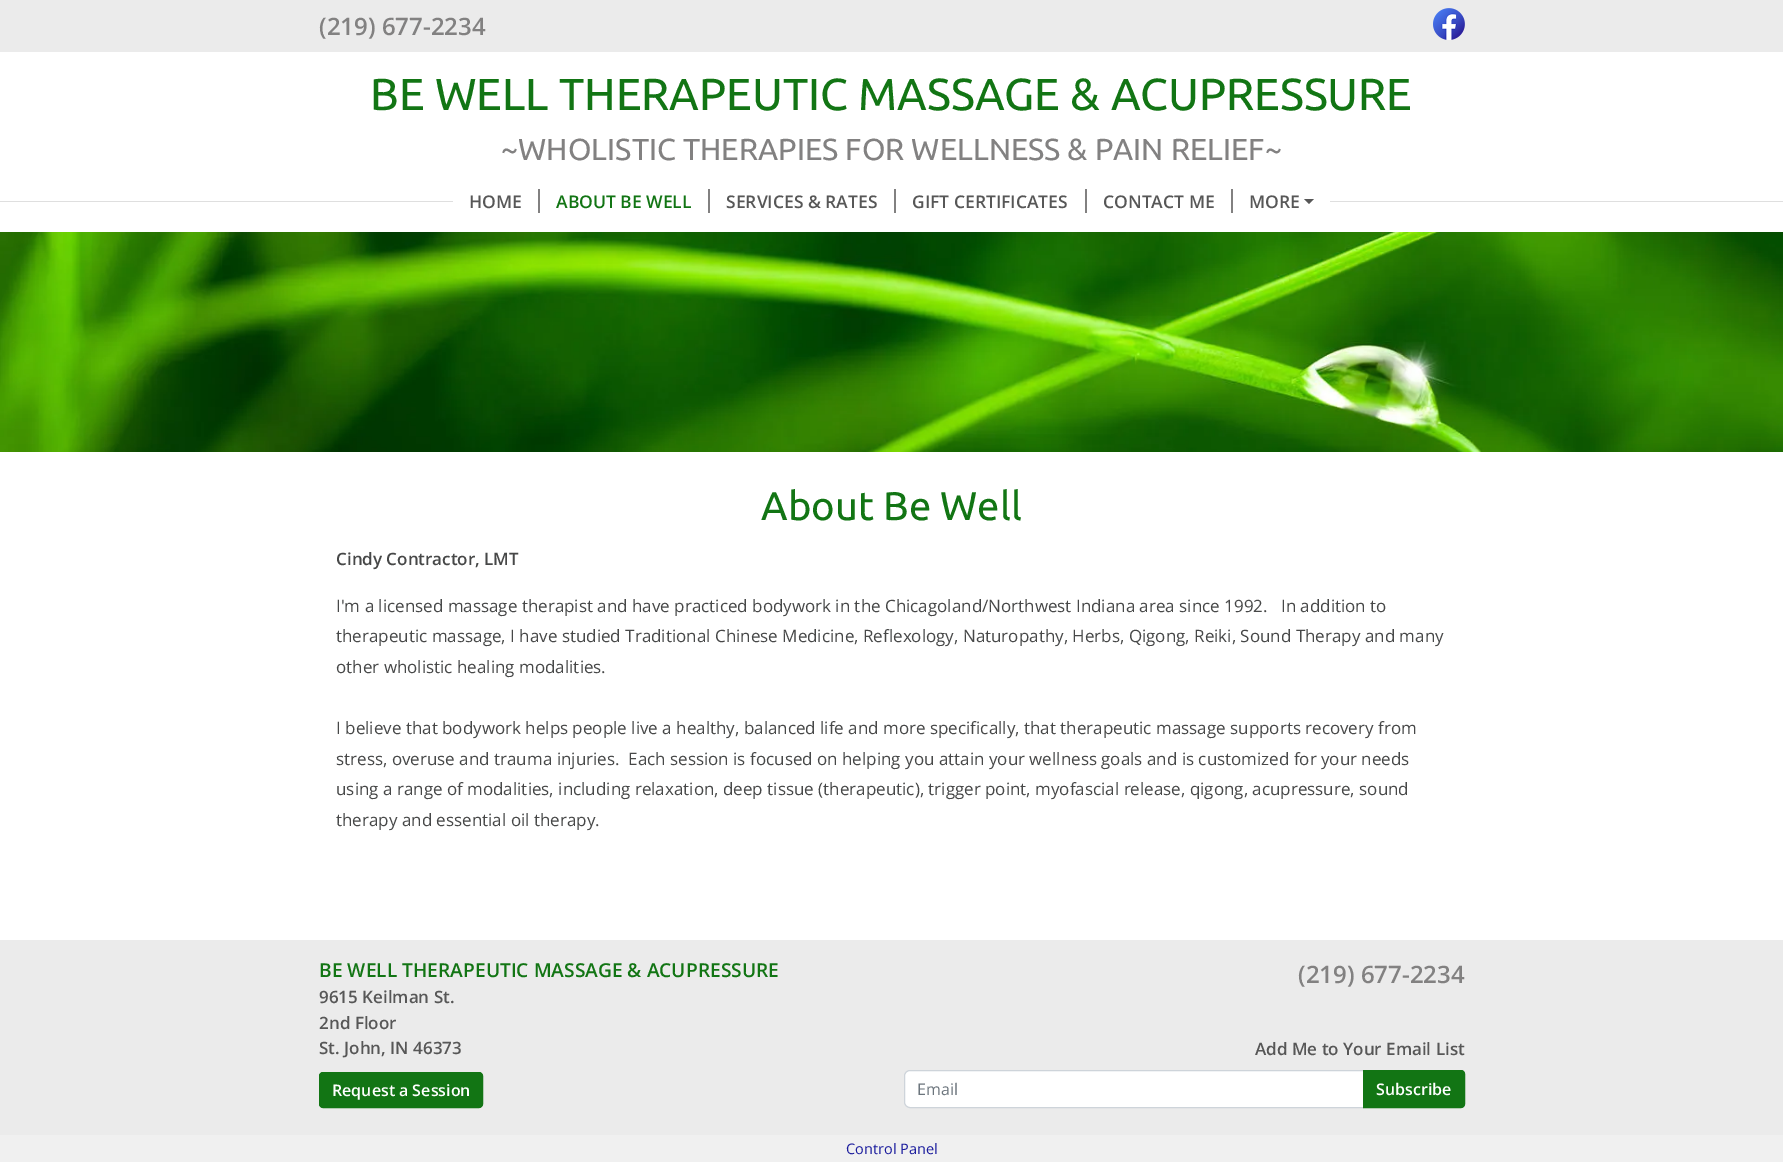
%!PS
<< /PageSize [1783 1162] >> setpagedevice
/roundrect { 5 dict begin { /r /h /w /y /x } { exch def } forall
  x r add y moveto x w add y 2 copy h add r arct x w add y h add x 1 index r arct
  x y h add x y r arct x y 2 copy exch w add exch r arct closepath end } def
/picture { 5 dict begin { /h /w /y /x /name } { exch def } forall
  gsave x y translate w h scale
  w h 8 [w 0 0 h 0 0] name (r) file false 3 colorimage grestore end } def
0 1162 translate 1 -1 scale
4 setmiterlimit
1 setgray
0 0 1783 1162 rectfill
0.922 setgray
0 0 1783 52 rectfill
/OpenSans-SemiBold [24 0 0 -24 0 0] selectfont
0.51 0.506 0.506 setrgbcolor
319 35 moveto (\(219\) 677-2234) show
(img1.rgb) 1433 8 32 32 picture
/Ubuntu-Regular [44.8 0 0 -44.8 0 0] selectfont
0.071 0.459 0.078 setrgbcolor
370 110 moveto (BE WELL THERAPEUTIC MASSAGE & ACUPRESSURE) show
/Ubuntu-Regular [30.4 0 0 -30.4 0 0] selectfont
0.51 0.506 0.506 setrgbcolor
501 160 moveto (~WHOLISTIC THERAPIES FOR WELLNESS & PAIN RELIEF~) show
0.875 setgray
0 201 1783 1 rectfill
1 setgray
453 201 877 1 rectfill
/OpenSans-SemiBold [17.5 0 0 -17.5 0 0] selectfont
0.341 setgray
469 208 moveto (HOME) show
0.51 0.506 0.506 setrgbcolor
538 189 2 24 rectfill
0.071 0.459 0.078 setrgbcolor
556 208 moveto (ABOUT BE WELL) show
0.51 0.506 0.506 setrgbcolor
708 189 2 24 rectfill
0.341 setgray
726 208 moveto (SERVICES & RATES) show
0.51 0.506 0.506 setrgbcolor
894 189 2 24 rectfill
0.341 setgray
912 208 moveto (GIFT CERTIFICATES) show
0.51 0.506 0.506 setrgbcolor
1085 189 2 24 rectfill
0.341 setgray
1103 208 moveto (CONTACT ME) show
0.51 0.506 0.506 setrgbcolor
1231 189 2 24 rectfill
0.341 setgray
1249 208 moveto (MORE) show
newpath 1304 199 moveto 1314 199 lineto 1309 204 lineto closepath fill
(img2.rgb) 0 232 1783 220 picture
/Ubuntu-Regular [40 0 0 -40 0 0] selectfont
0.071 0.459 0.078 setrgbcolor
761 520 moveto (About Be Well) show
/OpenSans-SemiBold [17 0 0 -17 0 0] selectfont
0.278 0.282 0.282 setrgbcolor
336 565 moveto (Cindy Contractor, LMT) show
/OpenSans-Regular [17 0 0 -17 0 0] selectfont
336 612 moveto (I'm a licensed massage therapist and have practiced bodywork in the Chicagoland/Northwest Indiana area since 1992.   In addition to) show
336 642 moveto (therapeutic massage, I have studied Traditional Chinese Medicine, Reflexology, Naturopathy, Herbs, Qigong, Reiki, Sound Therapy and many) show
336 673 moveto (other wholistic healing modalities.) show
336 734 moveto (I believe that bodywork helps people live a healthy, balanced life and more specifically, that therapeutic massage supports recovery from) show
336 765 moveto (stress, overuse and trauma injuries.  Each session is focused on helping you attain your wellness goals and is customized for your needs) show
336 795 moveto (using a range of modalities, including relaxation, deep tissue \(therapeutic\), trigger point, myofascial release, qigong, acupressure, sound) show
336 826 moveto (therapy and essential oil therapy.) show
0.922 setgray
0 940 1783 195 rectfill
/OpenSans-SemiBold [19.2 0 0 -19.2 0 0] selectfont
0.071 0.459 0.078 setrgbcolor
319 977 moveto (BE WELL THERAPEUTIC MASSAGE & ACUPRESSURE) show
/OpenSans-SemiBold [17 0 0 -17 0 0] selectfont
0.341 setgray
319 1003 moveto (9615 Keilman St.) show
319 1029 moveto (2nd Floor) show
319 1054 moveto (St. John, IN 46373) show
0.071 0.459 0.078 setrgbcolor
319.5 1072.5 163 35 3.5 roundrect gsave fill grestore
stroke
/OpenSans-SemiBold [16 0 0 -16 0 0] selectfont
1 setgray
332 1096 moveto (Request a Session) show
/OpenSans-SemiBold [24 0 0 -24 0 0] selectfont
0.51 0.506 0.506 setrgbcolor
1298 983 moveto (\(219\) 677-2234) show
/OpenSans-SemiBold [17 0 0 -17 0 0] selectfont
0.341 setgray
1255 1055 moveto (Add Me to Your Email List) show
1 setgray
newpath 910 1070.5 moveto 1363.5 1070.5 lineto 1363.5 1107.5 lineto 910 1107.5 lineto 907 1107.5 904.5 1105 904.5 1102 curveto 904.5 1076 lineto 904.5 1073 907 1070.5 910 1070.5 curveto closepath gsave fill grestore
0.808 0.831 0.855 setrgbcolor
stroke
/OpenSans-Regular [16 0 0 -16 0 0] selectfont
0.424 0.459 0.49 setrgbcolor
917 1095 moveto (Email) show
0.071 0.459 0.078 setrgbcolor
newpath 1363.5 1070.5 moveto 1461 1070.5 lineto 1463 1070.5 1464.5 1072 1464.5 1074 curveto 1464.5 1104 lineto 1464.5 1106 1463 1107.5 1461 1107.5 curveto 1363.5 1107.5 lineto closepath gsave fill grestore
stroke
/OpenSans-SemiBold [16 0 0 -16 0 0] selectfont
1 setgray
1376 1095 moveto (Subscribe) show
0.941 setgray
0 1135 1783 27 rectfill
/OpenSans-Regular [14.5 0 0 -14.5 0 0] selectfont
0.11 0.114 0.62 setrgbcolor
846 1154 moveto (Control Panel) show
showpage
